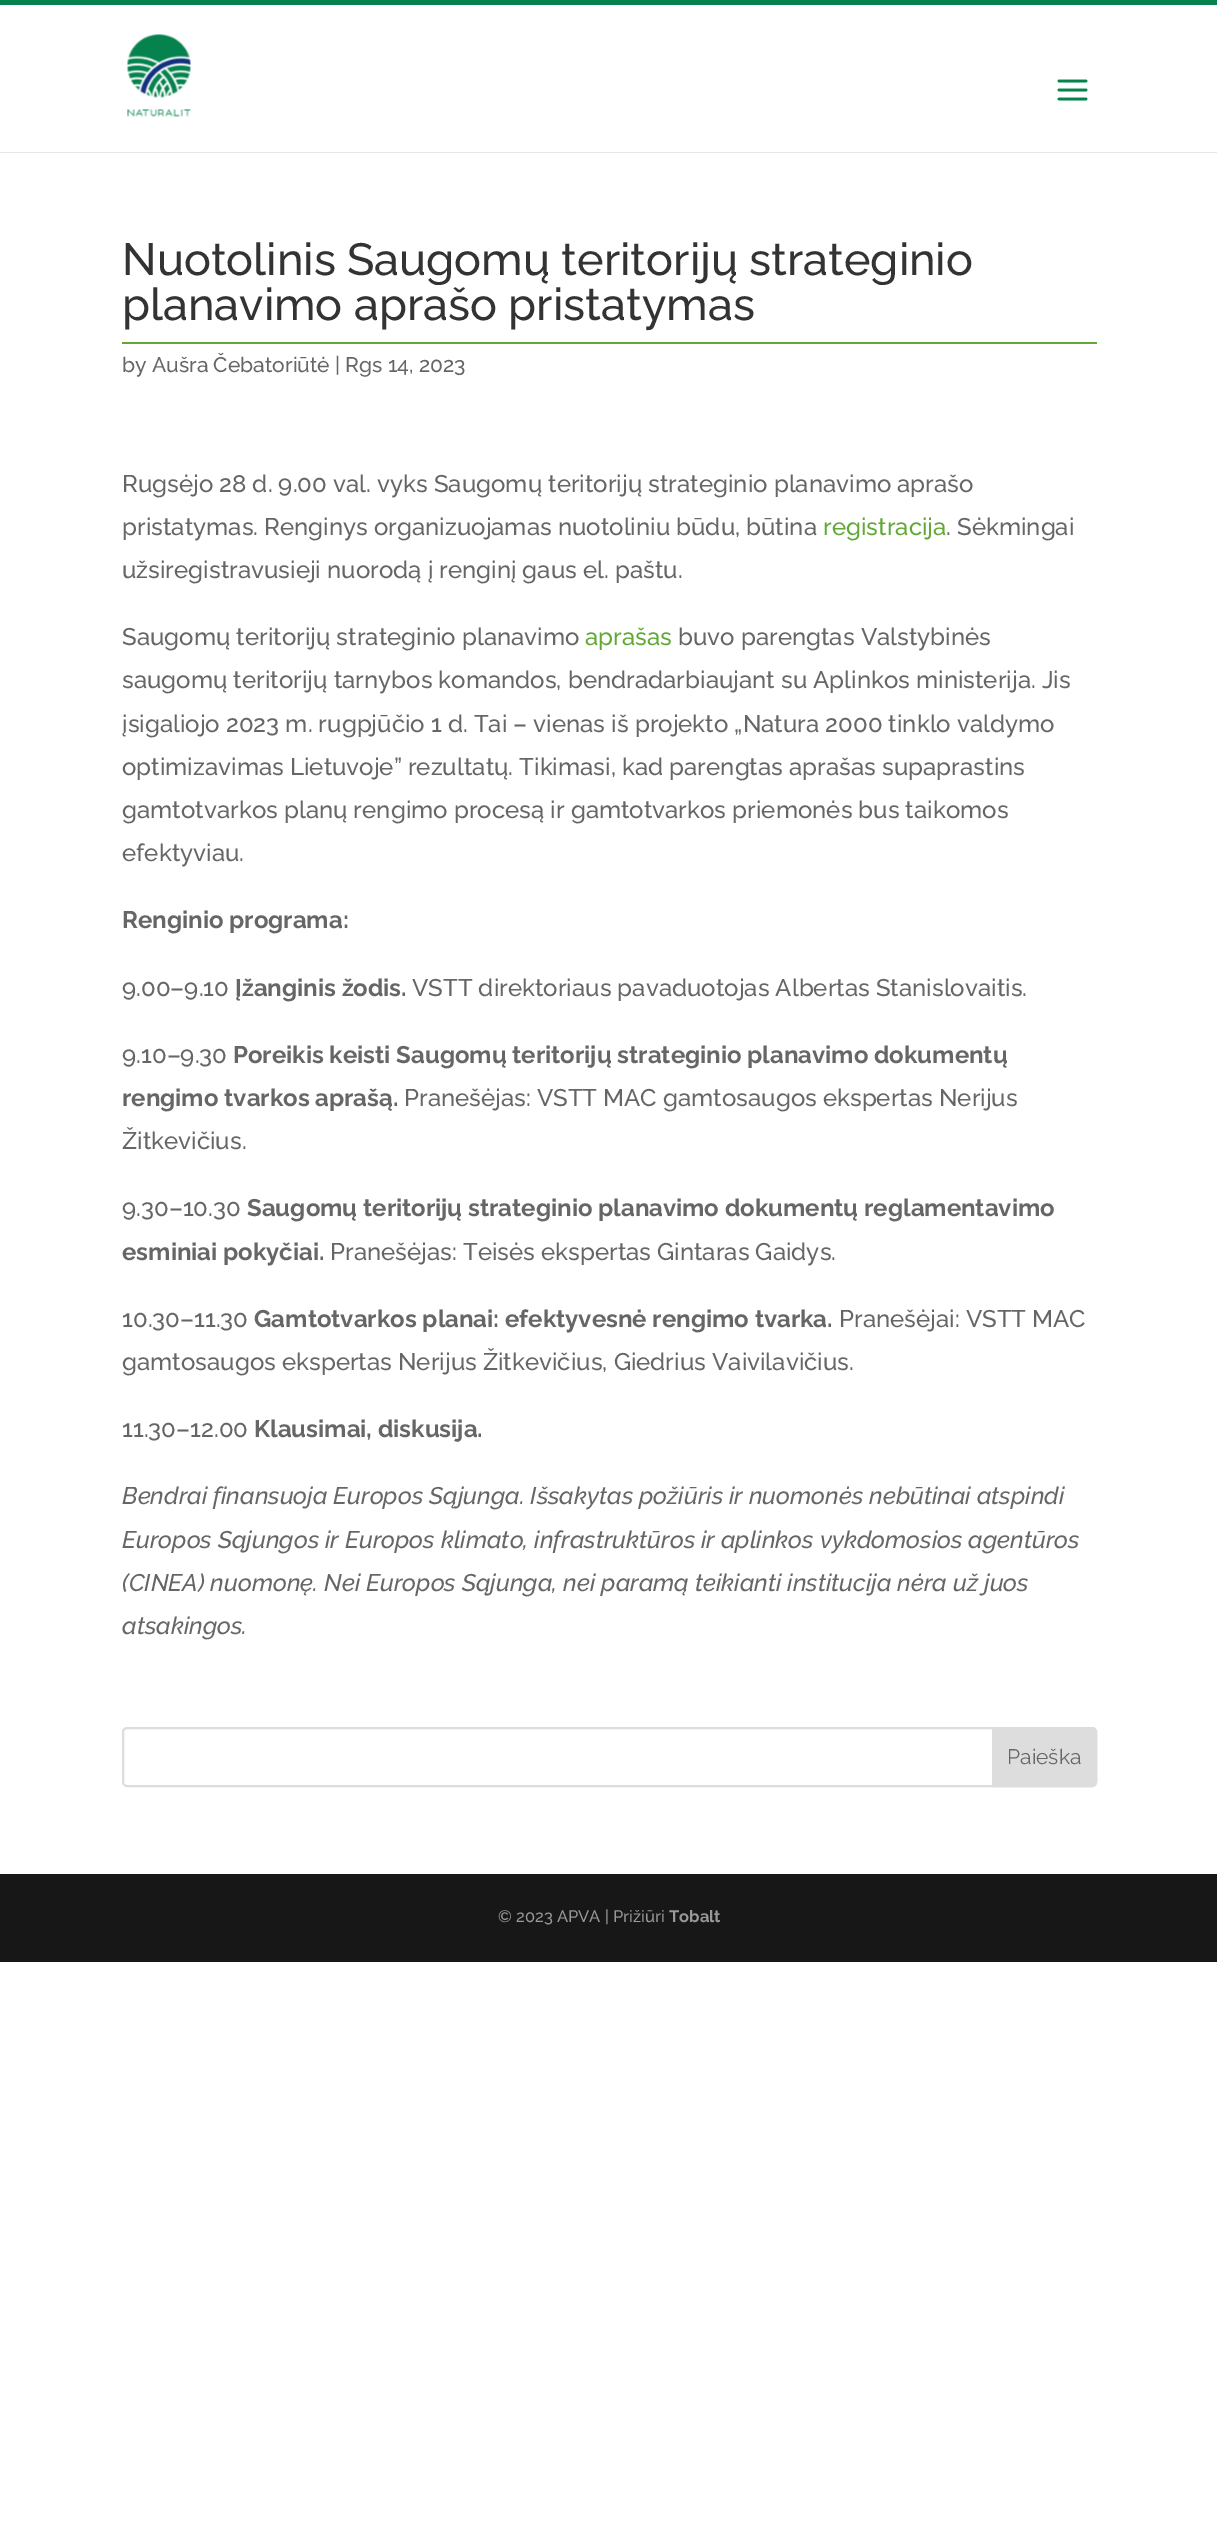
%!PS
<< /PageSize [1217 2525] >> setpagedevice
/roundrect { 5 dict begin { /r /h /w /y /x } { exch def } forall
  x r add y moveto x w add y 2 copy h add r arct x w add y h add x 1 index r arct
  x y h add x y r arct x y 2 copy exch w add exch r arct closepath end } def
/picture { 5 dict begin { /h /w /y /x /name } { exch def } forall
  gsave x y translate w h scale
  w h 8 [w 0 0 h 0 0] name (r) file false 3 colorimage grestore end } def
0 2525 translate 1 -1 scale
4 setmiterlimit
1 setgray
0 0 1217 2525 rectfill
0.02 0.51 0.306 setrgbcolor
0 0 1217 5 rectfill
0.902 setgray
0 152 1217 1 rectfill
(img1.rgb) 127 34 64 83 picture
(img2.rgb) 1057 79 31 22 picture
0.376 0.663 0.204 setrgbcolor
122 342 975 2 rectfill
/Raleway-Medium [45 0 0 -45 0 0] selectfont
0.2 setgray
122 275 moveto (Nuotolinis Saugomų teritorijų strateginio) show
122 320 moveto (planavimo aprašo pristatymas) show
/Raleway-Medium [21 0 0 -21 0 0] selectfont
0.4 setgray
122 372 moveto (by Aušra Čebatoriūtė | Rgs 14, 2023) show
/Raleway-Medium [24 0 0 -24 0 0] selectfont
122 492 moveto (Rugsėjo 28 d. 9.00 val. vyks Saugomų teritorijų strateginio planavimo aprašo) show
122 535 moveto (pristatymas. Renginys organizuojamas nuotoliniu būdu, būtina) show
0.376 0.663 0.204 setrgbcolor
823 535 moveto (registracija) show
0.4 setgray
946 535 moveto (. Sėkmingai) show
122 578 moveto (užsiregistravusieji nuorodą į renginį gaus el. paštu.) show
122 645 moveto (Saugomų teritorijų strateginio planavimo) show
0.376 0.663 0.204 setrgbcolor
585 645 moveto (aprašas) show
0.4 setgray
678 645 moveto (buvo parengtas Valstybinės) show
122 688 moveto (saugomų teritorijų tarnybos komandos, bendradarbiaujant su Aplinkos ministerija. Jis) show
122 732 moveto (įsigaliojo 2023 m. rugpjūčio 1 d. Tai – vienas iš projekto „Natura 2000 tinklo valdymo) show
122 775 moveto (optimizavimas Lietuvoje” rezultatų. Tikimasi, kad parengtas aprašas supaprastins) show
122 818 moveto (gamtotvarkos planų rengimo procesą ir gamtotvarkos priemonės bus taikomos) show
122 861 moveto (efektyviau.) show
/Raleway-Bold [24 0 0 -24 0 0] selectfont
122 928 moveto (Renginio programa:) show
/Raleway-Medium [24 0 0 -24 0 0] selectfont
122 996 moveto (9.00–9.10) show
/Raleway-Bold [24 0 0 -24 0 0] selectfont
235 996 moveto (Įžanginis žodis.) show
/Raleway-Medium [24 0 0 -24 0 0] selectfont
412 996 moveto (VSTT direktoriaus pavaduotojas Albertas Stanislovaitis.) show
122 1063 moveto (9.10–9.30) show
/Raleway-Bold [24 0 0 -24 0 0] selectfont
233 1063 moveto (Poreikis keisti Saugomų teritorijų strateginio planavimo dokumentų) show
122 1106 moveto (rengimo tvarkos aprašą.) show
/Raleway-Medium [24 0 0 -24 0 0] selectfont
404 1106 moveto (Pranešėjas: VSTT MAC gamtosaugos ekspertas Nerijus) show
122 1149 moveto (Žitkevičius.) show
122 1216 moveto (9.30–10.30) show
/Raleway-Bold [24 0 0 -24 0 0] selectfont
247 1216 moveto (Saugomų teritorijų strateginio planavimo dokumentų reglamentavimo) show
122 1260 moveto (esminiai pokyčiai.) show
/Raleway-Medium [24 0 0 -24 0 0] selectfont
330 1260 moveto (Pranešėjas: Teisės ekspertas Gintaras Gaidys.) show
122 1327 moveto (10.30–11.30) show
/Raleway-Bold [24 0 0 -24 0 0] selectfont
254 1327 moveto (Gamtotvarkos planai: efektyvesnė rengimo tvarka.) show
/Raleway-Medium [24 0 0 -24 0 0] selectfont
839 1327 moveto (Pranešėjai: VSTT MAC) show
122 1370 moveto (gamtosaugos ekspertas Nerijus Žitkevičius, Giedrius Vaivilavičius.) show
122 1437 moveto (11.30–12.00) show
/Raleway-Bold [24 0 0 -24 0 0] selectfont
254 1437 moveto (Klausimai, diskusija.) show
/Raleway-MediumItalic [24 0 0 -24 0 0] selectfont
122 1504 moveto (Bendrai finansuoja Europos Sąjunga. Išsakytas požiūris ir nuomonės nebūtinai atspindi) show
122 1548 moveto (Europos Sąjungos ir Europos klimato, infrastruktūros ir aplinkos vykdomosios agentūros) show
122 1591 moveto (\(CINEA\) nuomonę. Nei Europos Sąjunga, nei paramą teikianti institucija nėra už juos) show
122 1634 moveto (atsakingos.) show
0.867 setgray
2 setlinewidth
123 1728 973 58 4 roundrect stroke
newpath 993 1728 moveto 1092 1728 lineto 1094 1728 1096 1730 1096 1732 curveto 1096 1782 lineto 1096 1784 1094 1786 1092 1786 curveto 993 1786 lineto closepath gsave fill grestore
stroke
/Raleway-Regular [21 0 0 -21 0 0] selectfont
0.4 setgray
1007 1764 moveto (Paieška) show
0.09 setgray
0 1874 1217 88 rectfill
/Raleway-Medium [16.5 0 0 -16.5 0 0] selectfont
0.6 setgray
498 1922 moveto (© 2023 APVA | Prižiūri) show
/Raleway-Bold [16.5 0 0 -16.5 0 0] selectfont
669 1922 moveto (Tobalt) show
showpage
